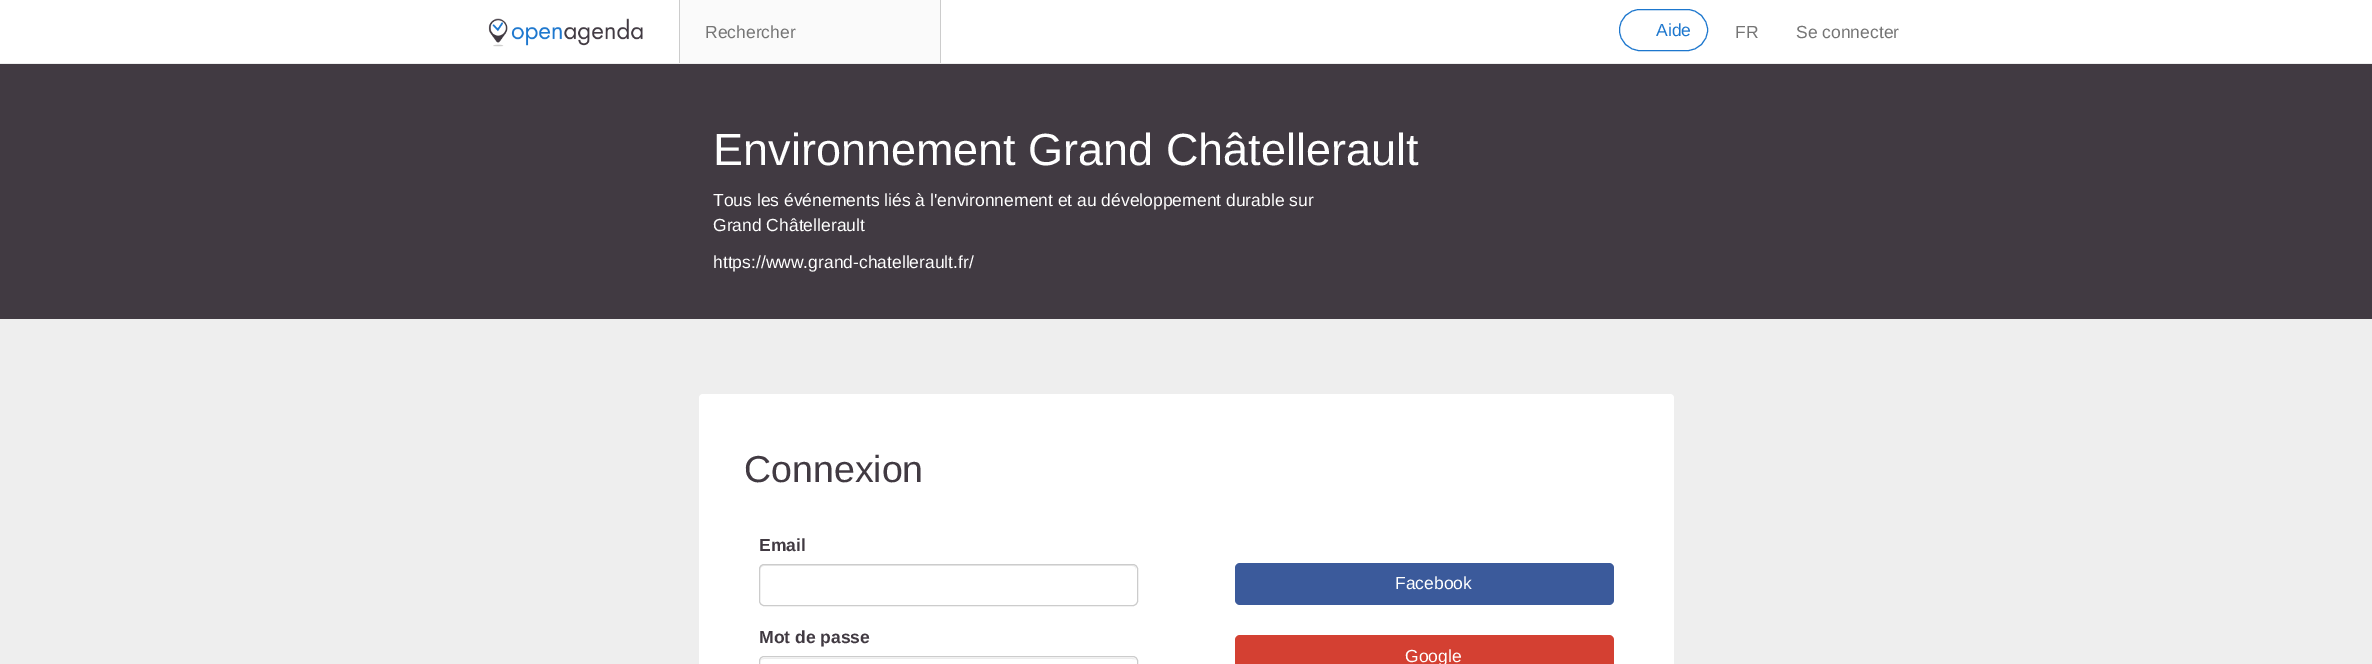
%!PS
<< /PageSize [2372 664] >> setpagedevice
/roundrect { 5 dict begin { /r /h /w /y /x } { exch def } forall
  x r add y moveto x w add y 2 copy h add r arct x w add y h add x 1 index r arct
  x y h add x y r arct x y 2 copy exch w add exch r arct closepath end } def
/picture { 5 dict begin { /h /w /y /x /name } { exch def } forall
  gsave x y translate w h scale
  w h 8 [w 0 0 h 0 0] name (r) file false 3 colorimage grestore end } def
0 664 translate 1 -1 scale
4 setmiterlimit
0.933 setgray
0 0 2372 664 rectfill
1 setgray
0 0 2372 63 rectfill
(img1.rgb) 488 18 155 29 picture
0.98 setgray
680 0 260 63 rectfill
0.8 setgray
679 0 1 63 rectfill
/LiberationSans-Regular [17.5 0 0 -17.5 0 0] selectfont
0.459 setgray
705 38 moveto (Rechercher) show
0.8 setgray
940 0 1 63 rectfill
0.114 0.467 0.808 setrgbcolor
1619.5 9.5 88 41 20.5 roundrect stroke
1656 36 moveto (Aide) show
0.459 setgray
1735 38 moveto (FR) show
1796 38 moveto (Se connecter) show
0.255 0.227 0.259 setrgbcolor
0 64 2372 255 rectfill
/LiberationSans-Regular [45 0 0 -45 0 0] selectfont
1 setgray
713 165 moveto (Environnement Grand Châtellerault) show
/LiberationSans-Regular [17.5 0 0 -17.5 0 0] selectfont
713 206 moveto (Tous les événements liés à l'environnement et au développement durable sur) show
713 231 moveto (Grand Châtellerault) show
713 268 moveto (https://www.grand-chatellerault.fr/) show
699 394 975 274 4 roundrect fill
/LiberationSans-Regular [37.5 0 0 -37.5 0 0] selectfont
0.255 0.227 0.259 setrgbcolor
744 482 moveto (Connexion) show
/LiberationSans-Bold [17.5 0 0 -17.5 0 0] selectfont
759 551 moveto (Email) show
0.925 setgray
newpath 764 566 moveto 1132 566 lineto 1135 566 1136 568 1136 570 curveto 1136 567 1135 565 1132 565 curveto 764 565 lineto 761 565 760 567 760 570 curveto 760 568 762 566 764 566 curveto closepath fill
0.8 setgray
759.5 564.5 378 41 4.5 roundrect stroke
0.255 0.227 0.259 setrgbcolor
759 643 moveto (Mot de passe) show
0.925 setgray
newpath 764 659 moveto 1132 659 lineto 1134 659 1135 659 1136 660 curveto 1135 659 1134 658 1132 658 curveto 764 658 lineto 762 658 760 660 760 662 curveto 760 660 762 659 764 659 curveto closepath fill
0.8 setgray
759.5 656.5 378 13 4.5 roundrect stroke
0.231 0.353 0.608 setrgbcolor
1235 563 379 42 5 roundrect fill
/LiberationSans-Regular [17.5 0 0 -17.5 0 0] selectfont
1 setgray
1395 589 moveto (Facebook) show
0.831 0.251 0.196 setrgbcolor
1235 635 379 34 5 roundrect fill
1 setgray
1405 662 moveto (Google) show
showpage
